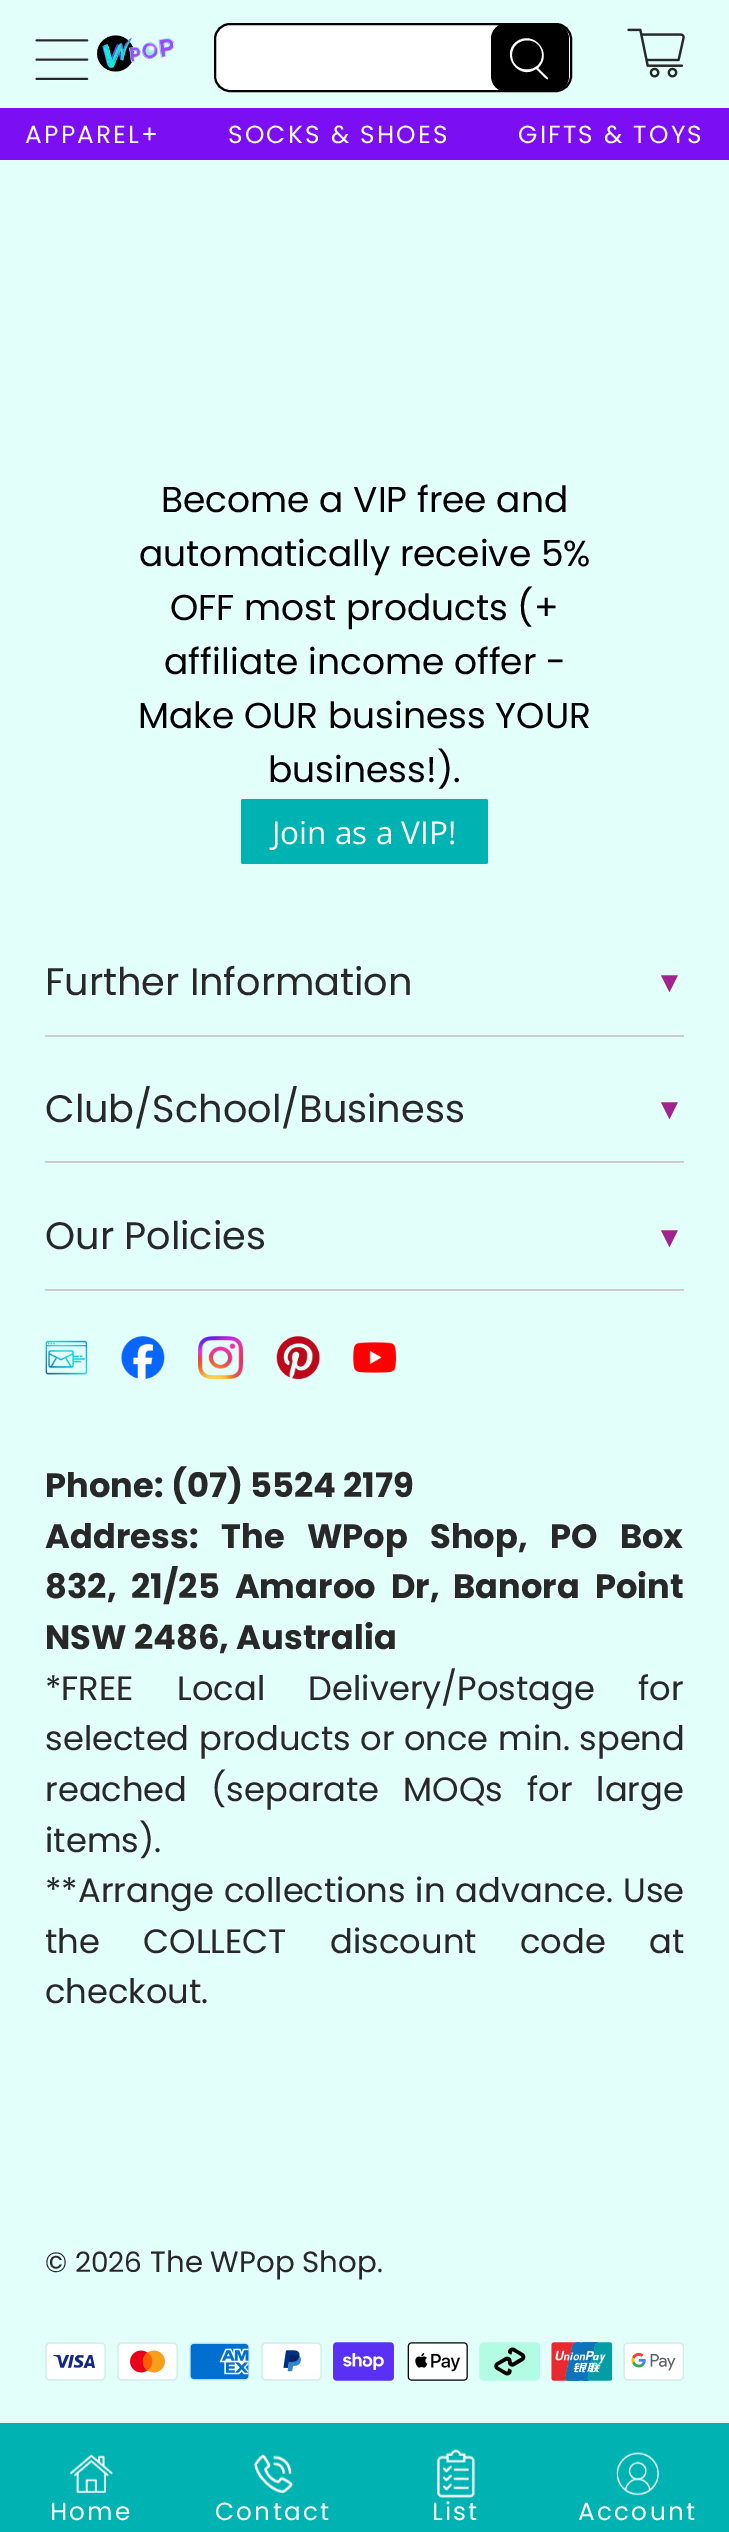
%!PS
<< /PageSize [729 2532] >> setpagedevice
/roundrect { 5 dict begin { /r /h /w /y /x } { exch def } forall
  x r add y moveto x w add y 2 copy h add r arct x w add y h add x 1 index r arct
  x y h add x y r arct x y 2 copy exch w add exch r arct closepath end } def
/picture { 5 dict begin { /h /w /y /x /name } { exch def } forall
  gsave x y translate w h scale
  w h 8 [w 0 0 h 0 0] name (r) file false 3 colorimage grestore end } def
0 2532 translate 1 -1 scale
4 setmiterlimit
0.89 1 0.98 setrgbcolor
0 0 729 2532 rectfill
(img1.rgb) 35 39 54 41 picture
(img2.rgb) 97 35 78 37 picture
1 setgray
215 24 356 67 15 roundrect gsave fill grestore
0 setgray
2 setlinewidth
stroke
491 23 78 69 16 roundrect fill
1 setgray
newpath 548 78 moveto 538 68 lineto 554 53 533 29 516 42 curveto 500 55 519 81 536 69 curveto 539 71 547 81 548 79 curveto closepath 512 55 moveto 512 36 541 35 542 54 curveto 543 74 512 75 512 55 curveto closepath fill
(img3.rgb) 627 28 58 50 picture
0.482 0.055 0.949 setrgbcolor
0 108 729 52 rectfill
/Poppins-Regular [24.75 0 0 -24.75 0 0] selectfont
1 setgray
25 143 moveto 2.25 0 (APPAREL+) ashow
228 143 moveto 2.25 0 (SOCKS & SHOES) ashow
518 143 moveto 2.25 0 (GIFTS & TOYS) ashow
0 0.702 0.702 setrgbcolor
0 2423 729 109 rectfill
(img4.rgb) 70 2454 43 39 picture
1 setgray
50 2520 moveto 2.25 0 (Home) ashow
(img5.rgb) 254 2454 39 40 picture
215 2520 moveto 2.25 0 (Contact) ashow
(img6.rgb) 437 2449 38 49 picture
432 2520 moveto 2.25 0 (List) ashow
(img7.rgb) 616 2451 43 45 picture
578 2520 moveto 2.25 0 (Account) ashow
/Poppins-Regular [36 0 0 -36 0 0] selectfont
0 setgray
161 512 moveto (Become a VIP free and) show
139 566 moveto (automatically receive 5%) show
170 620 moveto (OFF most products \(+) show
164 674 moveto (affiliate income offer -) show
138 728 moveto (Make OUR business YOUR) show
268 782 moveto (business!\).) show
0 0.702 0.702 setrgbcolor
241 799 247 65 2 roundrect fill
/OpenSans-Regular [31.5 0 0 -31.5 0 0] selectfont
1 setgray
272 844 moveto (Join as a VIP!) show
0.8 setgray
45 1035 639 2 rectfill
/Poppins-Regular [38.25 0 0 -38.25 0 0] selectfont
0.157 setgray
45 995 moveto (Further Information) show
/LiberationSans-Regular [29.25 0 0 -29.25 0 0] selectfont
0.639 0.137 0.557 setrgbcolor
655 992 moveto (▼) show
0.8 setgray
45 1161 639 2 rectfill
/Poppins-Regular [38.25 0 0 -38.25 0 0] selectfont
0.157 setgray
45 1122 moveto (Club/School/Business) show
/LiberationSans-Regular [29.25 0 0 -29.25 0 0] selectfont
0.639 0.137 0.557 setrgbcolor
655 1119 moveto (▼) show
0.8 setgray
45 1289 639 2 rectfill
/Poppins-Regular [38.25 0 0 -38.25 0 0] selectfont
0.157 setgray
45 1249 moveto (Our Policies) show
/LiberationSans-Regular [29.25 0 0 -29.25 0 0] selectfont
0.639 0.137 0.557 setrgbcolor
655 1247 moveto (▼) show
(img8.rgb) 45 1340 43 35 picture
(img9.rgb) 121 1336 44 43 picture
(img10.rgb) 198 1336 45 43 picture
(img11.rgb) 276 1336 44 43 picture
(img12.rgb) 353 1342 43 31 picture
/Poppins-Bold [33.75 0 0 -33.75 0 0] selectfont
0.157 setgray
45 1497 moveto (Phone: \(07\) 5524 2179) show
45 1548 moveto (Address:) show
221 1548 moveto 15 0 32 (The WPop Shop,) widthshow
550 1548 moveto 15 0 32 (PO Box) widthshow
45 1598 moveto (832,) show
131 1598 moveto 8 0 32 (21/25 Amaroo Dr,) widthshow
453 1598 moveto 8 0 32 (Banora Point) widthshow
45 1649 moveto (NSW 2486, Australia) show
/Poppins-Regular [33.75 0 0 -33.75 0 0] selectfont
45 1700 moveto 34.5 0 32 (*FREE Local Delivery/Postage for) widthshow
45 1750 moveto 0.5 0 32 (selected products or once min. spend) widthshow
45 1801 moveto 15 0 32 (reached \(separate MOQs for large) widthshow
45 1852 moveto (items\).) show
45 1902 moveto 1 0 32 (**Arrange collections in advance. Use) widthshow
45 1953 moveto 34.5 0 32 (the COLLECT discount code at) widthshow
45 2003 moveto (checkout.) show
/Poppins-Regular [28 0 0 -28 0 0] selectfont
45 2272 moveto (© 2026) show
/Poppins-Regular [29.25 0 0 -29.25 0 0] selectfont
150 2272 moveto (The WPop Shop) show
/Poppins-Regular [28 0 0 -28 0 0] selectfont
377 2272 moveto (.) show
(img13.rgb) 45 2342 61 39 picture
(img14.rgb) 117 2342 61 39 picture
(img15.rgb) 189 2342 61 39 picture
(img16.rgb) 261 2342 61 39 picture
(img17.rgb) 333 2342 61 39 picture
(img18.rgb) 407 2342 61 39 picture
(img19.rgb) 479 2342 61 39 picture
(img20.rgb) 551 2342 61 39 picture
(img21.rgb) 623 2342 61 39 picture
showpage
